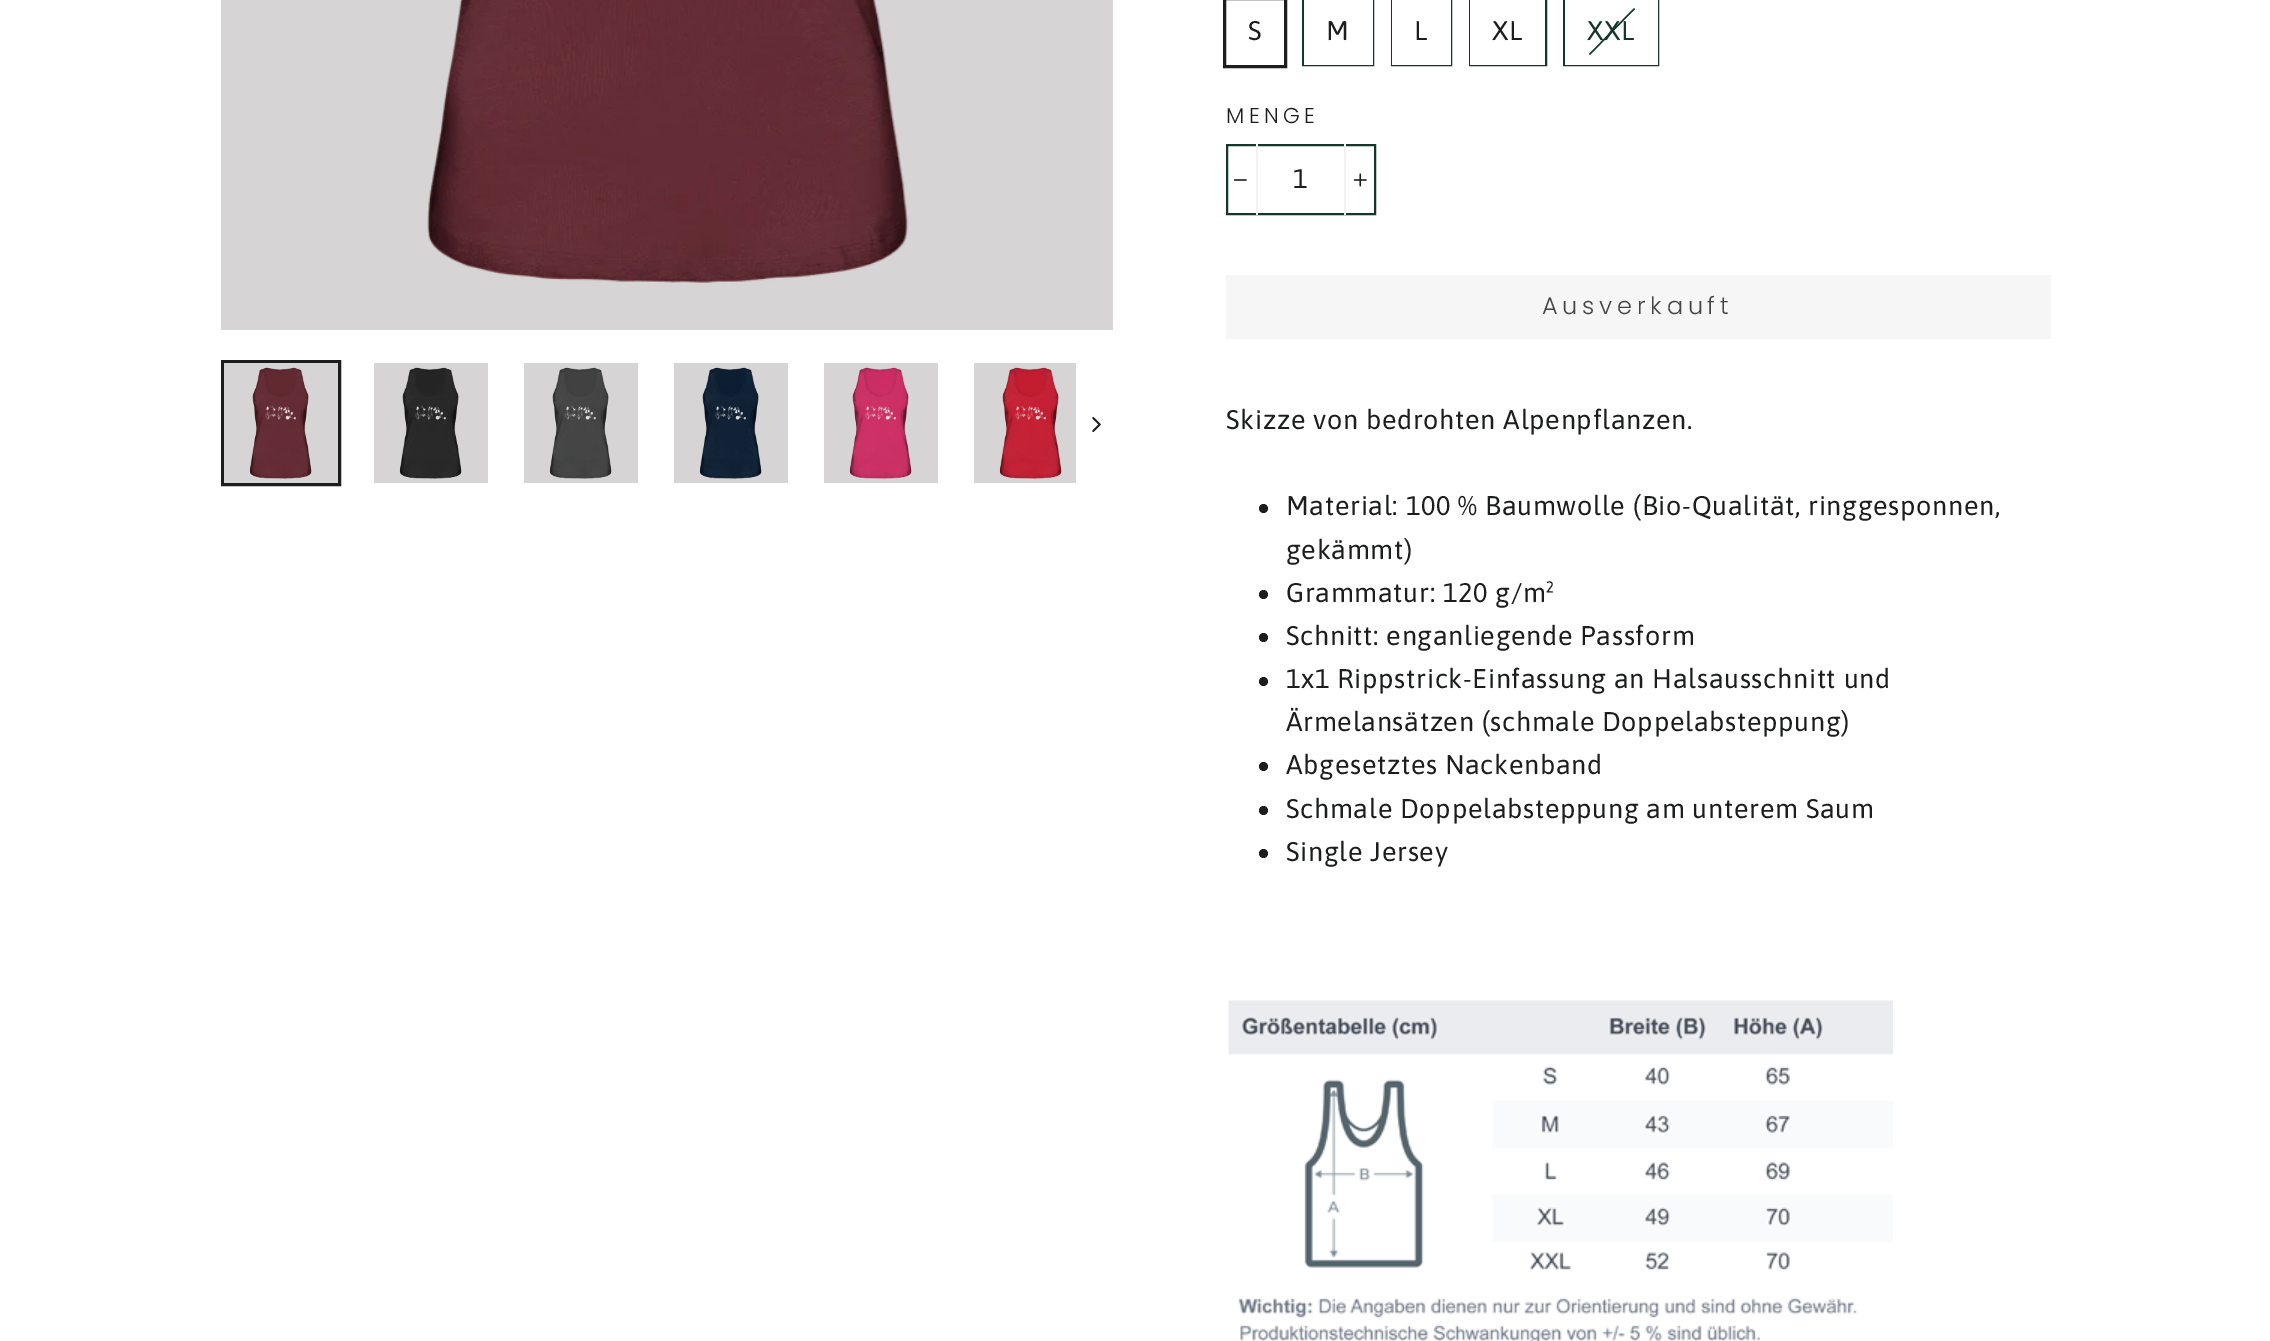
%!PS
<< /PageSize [2270 1341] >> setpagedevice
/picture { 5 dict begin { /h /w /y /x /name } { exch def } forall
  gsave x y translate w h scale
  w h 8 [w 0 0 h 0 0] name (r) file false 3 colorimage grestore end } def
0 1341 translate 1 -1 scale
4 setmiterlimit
1 setgray
0 0 2270 1341 rectfill
0.839 0.831 0.831 setrgbcolor
221 0 892 330 rectfill
(img1.rgb) 427 0 482 283 picture
0.11 0.114 0.114 setrgbcolor
3 setlinewidth
222.5 361.5 117 123 rectstroke
0.839 0.831 0.831 setrgbcolor
224 363 114 120 rectfill
(img2.rgb) 249 367 63 112 picture
374 363 114 120 rectfill
(img3.rgb) 399 367 63 112 picture
524 363 114 120 rectfill
(img4.rgb) 549 367 63 112 picture
674 363 114 120 rectfill
(img5.rgb) 699 367 63 112 picture
824 363 114 120 rectfill
(img6.rgb) 849 367 63 112 picture
974 363 102 120 rectfill
(img7.rgb) 999 367 63 112 picture
(img8.rgb) 1092 417 9 15 picture
0.11 0.114 0.114 setrgbcolor
1224.5 -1.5 61 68 rectstroke
/Asap-Regular [27 0 0 -27 0 0] selectfont
1248 40 moveto 0.68 0 (S) ashow
0.078 0.216 0.173 setrgbcolor
2 setlinewidth
1303 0 70 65 rectstroke
1 setgray
1304 0 69 65 rectfill
0.11 0.114 0.114 setrgbcolor
1326 40 moveto 0.68 0 (M) ashow
0.078 0.216 0.173 setrgbcolor
1392 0 59 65 rectstroke
1 setgray
1392 0 59 65 rectfill
0.11 0.114 0.114 setrgbcolor
1414 40 moveto 0.68 0 (L) ashow
0.078 0.216 0.173 setrgbcolor
1470 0 76 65 rectstroke
1 setgray
1470 0 75 65 rectfill
0.11 0.114 0.114 setrgbcolor
1492 40 moveto 0.68 0 (XL) ashow
0.078 0.216 0.173 setrgbcolor
1564 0 94 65 rectstroke
1 setgray
1565 0 93 65 rectfill
0.078 0.216 0.173 setrgbcolor
newpath 1634 8 moveto 1635 9 lineto 1590 55 lineto 1589 54 lineto closepath fill
1587 40 moveto 0.68 0 (XXL) ashow
/Poppins-Light [21.5 0 0 -21.5 0 0] selectfont
0.11 0.114 0.114 setrgbcolor
1226 123 moveto 4.5 0 (MENGE) ashow
0.078 0.216 0.173 setrgbcolor
1227 145 148 69 rectstroke
0.949 setgray
1256 144 2 71 rectfill
(img9.rgb) 1233 179 14 2 picture
/Asap-Regular [27 0 0 -27 0 0] selectfont
0.11 0.114 0.114 setrgbcolor
1293 188 moveto 0.68 0 (1) ashow
0.949 setgray
1344 144 2 71 rectfill
(img10.rgb) 1353 173 14 14 picture
0.965 setgray
1226 275 825 64 rectfill
/Poppins-Light [24 0 0 -24 0 0] selectfont
0.267 setgray
1542 314 moveto 4.75 0 (Ausverkauft) ashow
/Asap-Regular [27 0 0 -27 0 0] selectfont
0.11 0.114 0.114 setrgbcolor
1226 429 moveto 0.68 0 (Skizze von bedrohten Alpenpflanzen.) ashow
newpath 1263.5 508.5 4.5 0 360 arc closepath fill
1286 515 moveto 0.68 0 (Material: 100 % Baumwolle \(Bio-Qualität, ringgesponnen,) ashow
1286 559 moveto 0.68 0 (gekämmt\)) ashow
newpath 1263.5 594.5 4.5 0 360 arc closepath fill
1286 602 moveto 0.68 0 (Grammatur: 120 g/m²) ashow
newpath 1263.5 637.5 4.5 0 360 arc closepath fill
1286 645 moveto 0.68 0 (Schnitt: enganliegende Passform) ashow
newpath 1263.5 681.5 4.5 0 360 arc closepath fill
1286 688 moveto 0.68 0 (1x1 Rippstrick-Einfassung an Halsausschnitt und) ashow
1286 731 moveto 0.68 0 (Ärmelansätzen \(schmale Doppelabsteppung\)) ashow
newpath 1263.5 766.5 4.5 0 360 arc closepath fill
1286 774 moveto 0.68 0 (Abgesetztes Nackenband) ashow
newpath 1263.5 810.5 4.5 0 360 arc closepath fill
1286 818 moveto 0.68 0 (Schmale Doppelabsteppung am unterem Saum) ashow
newpath 1263.5 853.5 4.5 0 360 arc closepath fill
1286 861 moveto 0.68 0 (Single Jersey) ashow
(img11.rgb) 1228 1000 665 341 picture
showpage
